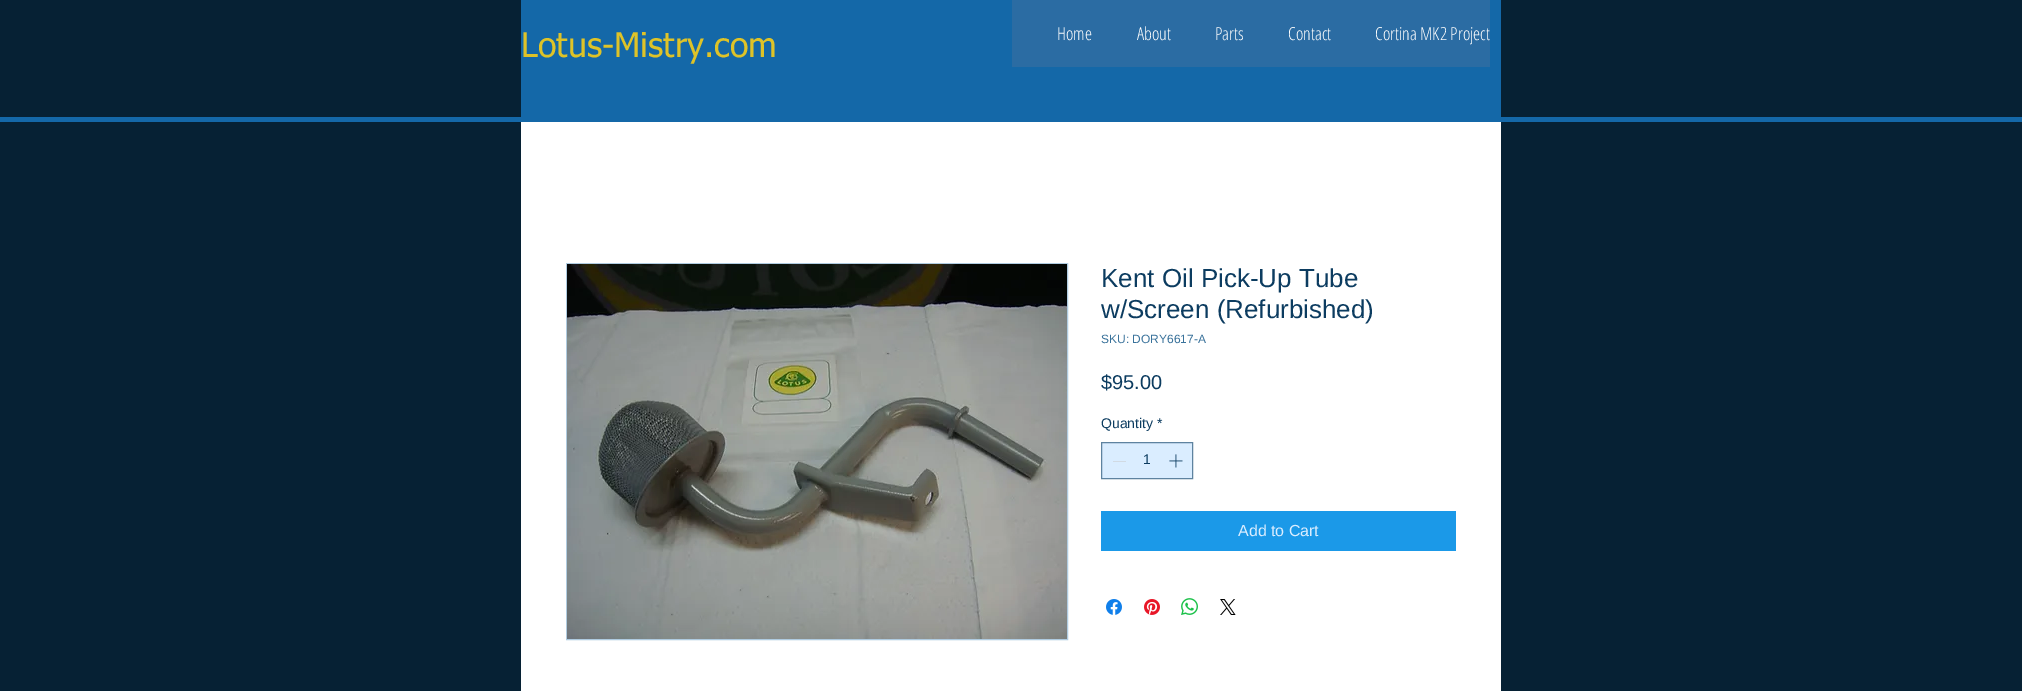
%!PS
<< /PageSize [2022 691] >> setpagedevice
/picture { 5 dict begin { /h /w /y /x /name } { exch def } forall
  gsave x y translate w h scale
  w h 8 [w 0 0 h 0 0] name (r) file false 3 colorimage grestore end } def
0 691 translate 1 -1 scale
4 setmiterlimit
0.024 0.129 0.204 setrgbcolor
0 0 2022 691 rectfill
0.078 0.408 0.659 setrgbcolor
521 0 980 117 rectfill
/tahoma-Regular [34 0 0 -34 0 0] selectfont
0.871 0.765 0.157 setrgbcolor
521 57 moveto (Lotus-Mistry.com) show
0.169 0.424 0.639 setrgbcolor
1012 0 478 67 rectfill
/OpenSansCondensed-Light [18 0 0 -18 0 0] selectfont
1 setgray
1057 40 moveto (Home) show
1137 40 moveto (About) show
1215 40 moveto (Parts) show
1288 40 moveto (Contact) show
1375 40 moveto (Cortina MK2 Project) show
0.078 0.408 0.659 setrgbcolor
0 117 2022 5 rectfill
1 setgray
521 122 980 569 rectfill
0.686 0.796 0.878 setrgbcolor
566.5 263.5 501 376 rectstroke
(img1.rgb) 567 264 500 375 picture
/LiberationSans-Regular [26 0 0 -26 0 0] selectfont
0.047 0.235 0.376 setrgbcolor
1101 287 moveto (Kent Oil Pick-Up Tube) show
1101 318 moveto (w/Screen \(Refurbished\)) show
/LiberationSans-Regular [12 0 0 -12 0 0] selectfont
0.224 0.447 0.608 setrgbcolor
1101 343 moveto (SKU: DORY6617-A) show
/LiberationSans-Regular [20 0 0 -20 0 0] selectfont
0.047 0.235 0.376 setrgbcolor
1101 389 moveto ($95.00) show
/LiberationSans-Regular [14 0 0 -14 0 0] selectfont
1101 428 moveto (Quantity *) show
0.855 0.929 1 setrgbcolor
newpath 1101.5 442.5 moveto 1192.5 442.5 lineto 1192.5 478.5 lineto 1101.5 478.5 lineto closepath gsave fill grestore
0.369 0.514 0.627 setrgbcolor
stroke
0.82 0.855 0.89 setrgbcolor
1113 461 13 1 rectfill
0.047 0.235 0.376 setrgbcolor
1143 464 moveto (1) show
(img2.rgb) 1169 454 14 14 picture
0.106 0.6 0.91 setrgbcolor
1101 511 355 40 rectfill
/LiberationSans-Regular [16 0 0 -16 0 0] selectfont
0.855 0.929 1 setrgbcolor
1238 536 moveto (Add to Cart) show
(img3.rgb) 1106 599 16 16 picture
(img4.rgb) 1144 599 16 16 picture
(img5.rgb) 1181 598 17 17 picture
(img6.rgb) 1220 599 16 16 picture
showpage
